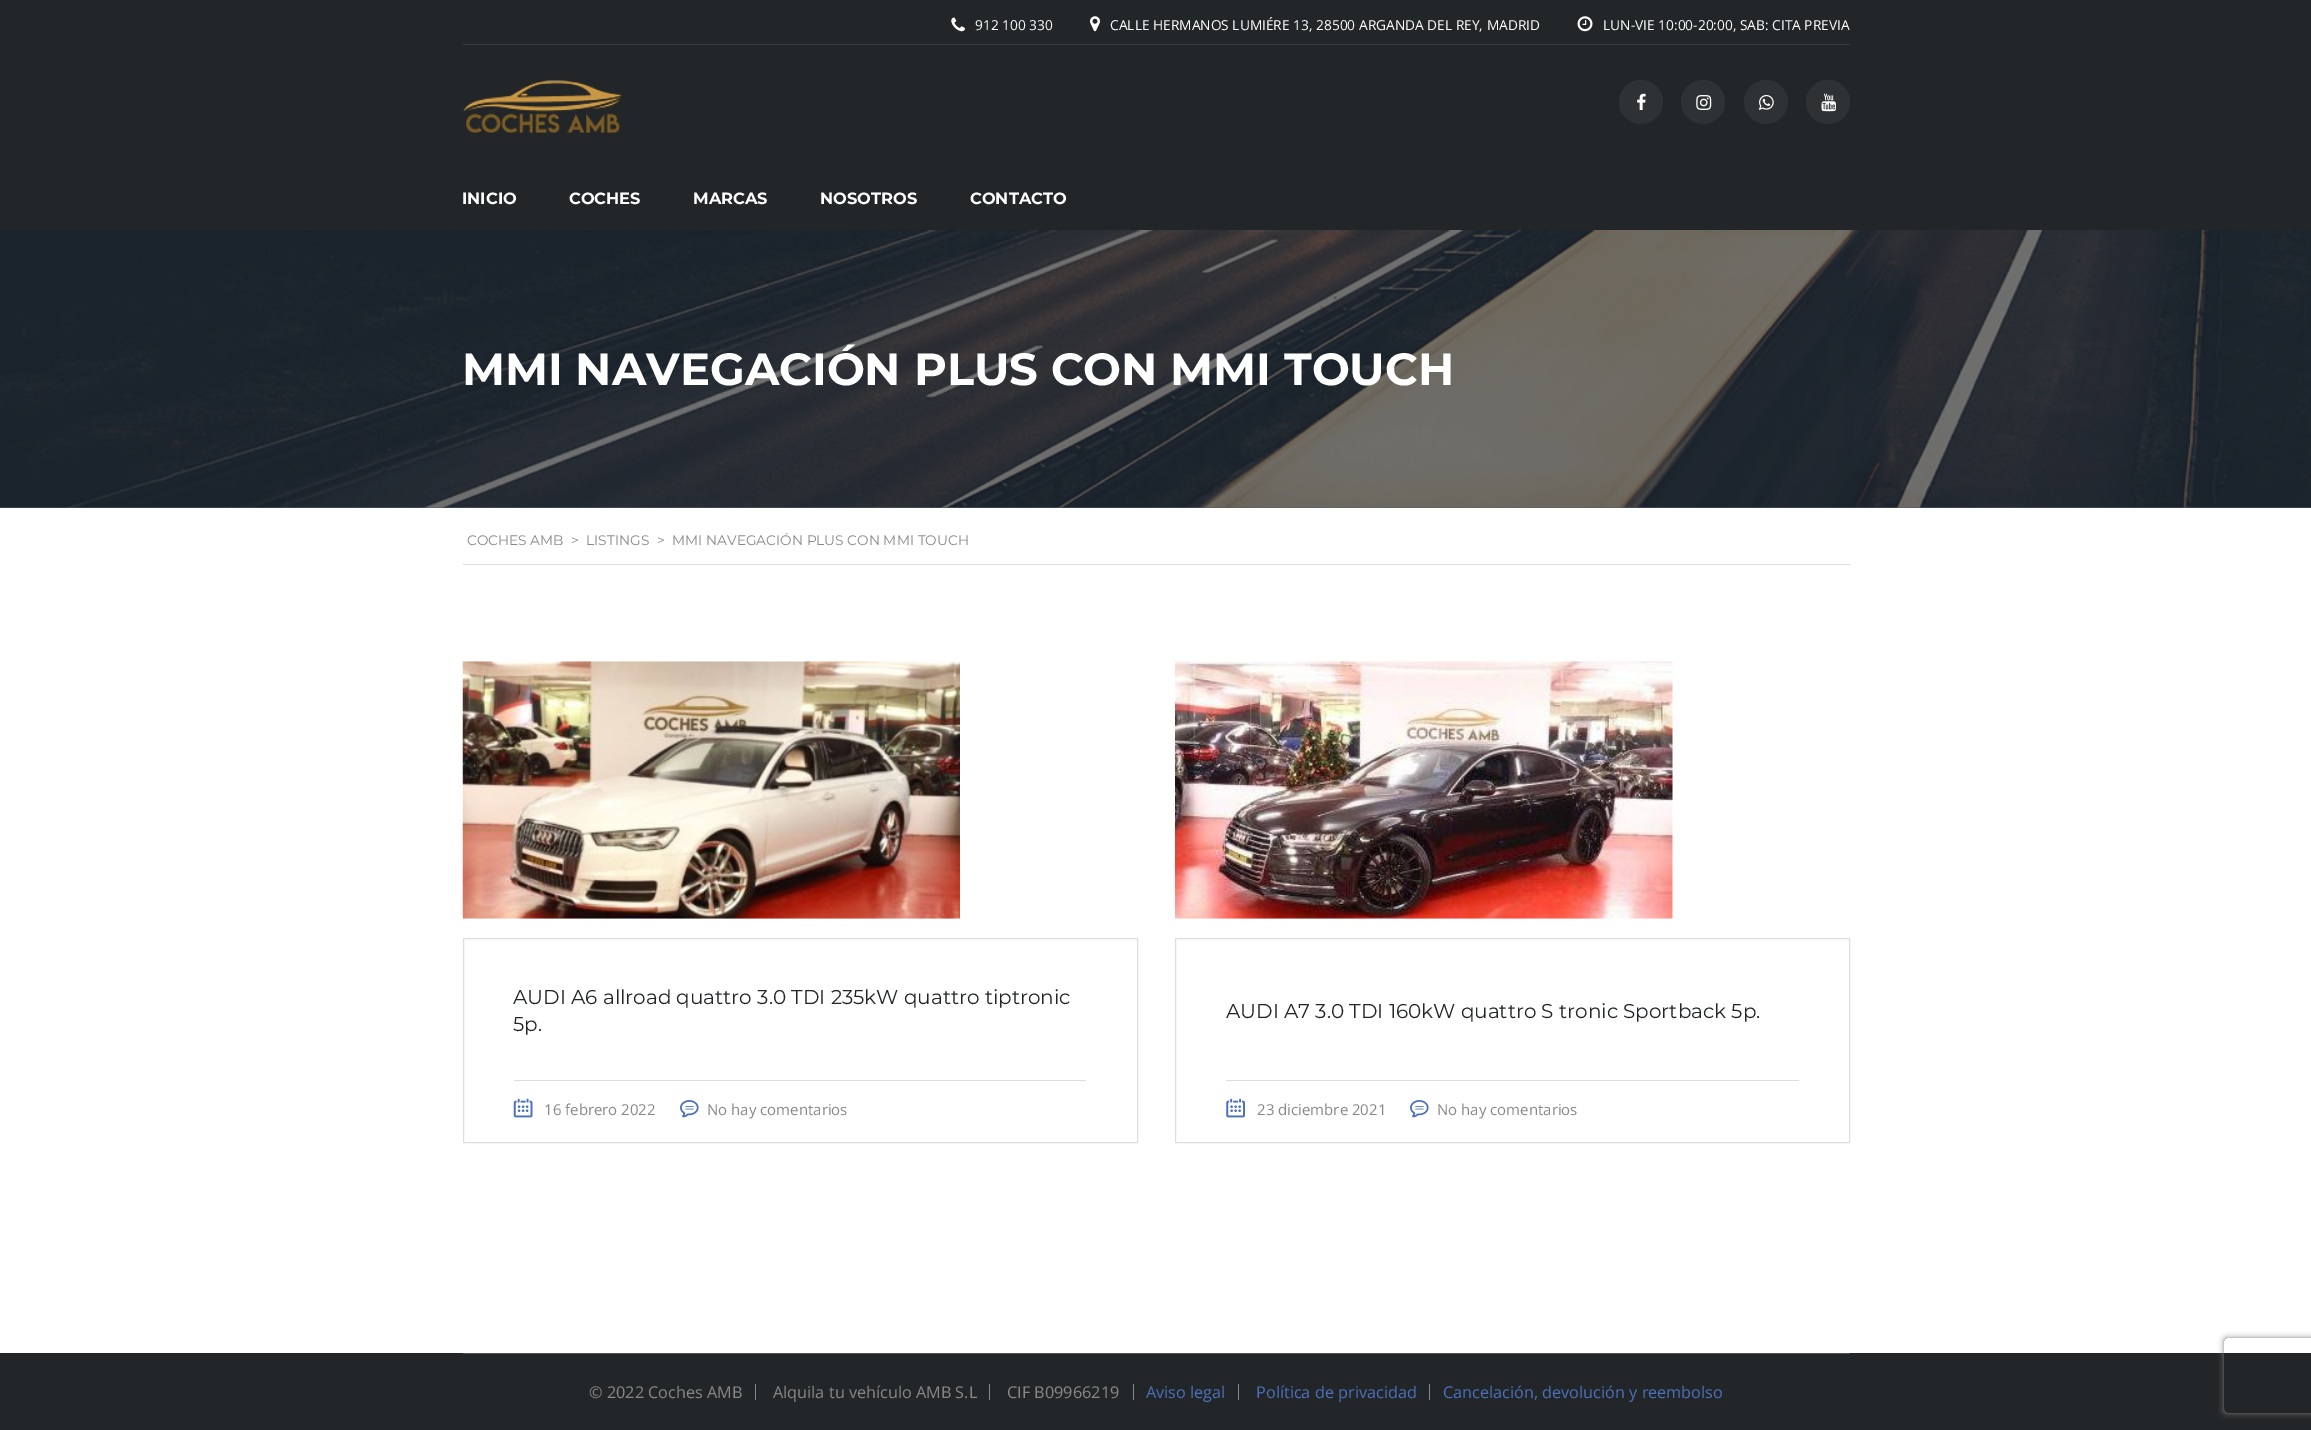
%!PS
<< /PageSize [2311 1430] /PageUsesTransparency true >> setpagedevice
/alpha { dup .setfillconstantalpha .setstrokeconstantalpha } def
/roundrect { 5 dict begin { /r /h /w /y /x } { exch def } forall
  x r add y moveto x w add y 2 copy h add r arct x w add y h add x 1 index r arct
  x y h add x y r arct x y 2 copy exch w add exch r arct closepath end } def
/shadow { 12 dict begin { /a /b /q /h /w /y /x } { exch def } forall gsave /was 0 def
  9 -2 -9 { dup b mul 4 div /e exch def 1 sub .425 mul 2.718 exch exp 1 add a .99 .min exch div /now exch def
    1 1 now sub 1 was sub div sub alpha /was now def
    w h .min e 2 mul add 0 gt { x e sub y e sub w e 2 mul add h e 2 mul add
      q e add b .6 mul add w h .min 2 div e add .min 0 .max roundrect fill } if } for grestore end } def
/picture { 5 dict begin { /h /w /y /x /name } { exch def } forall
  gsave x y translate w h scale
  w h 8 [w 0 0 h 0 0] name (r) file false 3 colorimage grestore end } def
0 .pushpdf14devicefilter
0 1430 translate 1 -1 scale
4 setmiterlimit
1 setgray
0 0 2311 1430 rectfill
0.137 0.149 0.157 setrgbcolor
0 0 2311 230 rectfill
0.224 0.235 0.243 setrgbcolor
463 44 1387 1 rectfill
(img1.rgb) 951 17 14 15 picture
/OpenSans-Regular [13.75 0 0 -13.75 0 0] selectfont
1 setgray
975 30 moveto (912 100 330) show
(img2.rgb) 1090 16 10 16 picture
1110 30 moveto (CALLE HERMANOS LUMIÉRE 13, 28500 ARGANDA DEL REY, MADRID) show
(img3.rgb) 1577 16 16 16 picture
1603 30 moveto (LUN-VIE 10:00-20:00, SAB: CITA PREVIA) show
(img4.rgb) 463 80 159 54 picture
0.184 0.196 0.204 setrgbcolor
newpath 1641 102 22 0 360 arc closepath fill
(img5.rgb) 1637 93 9 17 picture
newpath 1703 102 22 0 360 arc closepath fill
(img6.rgb) 1696 95 16 15 picture
newpath 1766 102 22 0 360 arc closepath fill
(img7.rgb) 1758 94 16 16 picture
newpath 1828 102 22 0 360 arc closepath fill
(img8.rgb) 1821 93 15 19 picture
/Montserrat-Bold [16.25 0 0 -16.25 0 0] selectfont
1 setgray
462 204 moveto (INICIO) show
569 204 moveto (COCHES) show
693 204 moveto (MARCAS) show
820 204 moveto (NOSOTROS) show
970 204 moveto (CONTACTO) show
0.349 0.388 0.42 setrgbcolor
0 507 2311 1 rectfill
(img9.rgb) 0 230 2311 278 picture
/Montserrat-Bold [45 0 0 -45 0 0] selectfont
1 setgray
462 385 moveto (MMI NAVEGACIÓN PLUS CON MMI TOUCH) show
0.867 setgray
463 564 1387 1 rectfill
/Montserrat-Regular [13.75 0 0 -13.75 0 0] selectfont
0.533 setgray
467 545 moveto (COCHES AMB) show
571 545 moveto (>) show
586 545 moveto (LISTINGS) show
657 545 moveto (>) show
672 545 moveto (MMI NAVEGACIÓN PLUS CON MMI TOUCH) show
(img10.rgb) 462 661 498 258 picture
0.867 setgray
463.5 938.5 674 204 0.5 roundrect stroke
/Montserrat-Regular [20 0 0 -20 0 0] selectfont
0.137 0.149 0.157 setrgbcolor
513 1004 moveto (AUDI A6 allroad quattro 3.0 TDI 235kW quattro tiptronic) show
513 1031 moveto (5p.) show
0.867 setgray
514 1080 572 1 rectfill
(img11.rgb) 513 1098 20 20 picture
/OpenSans-Regular [15 0 0 -15 0 0] selectfont
0.533 setgray
544 1115 moveto (16 febrero 2022) show
(img12.rgb) 680 1100 19 18 picture
707 1115 moveto (No hay comentarios) show
(img13.rgb) 1175 661 498 258 picture
0.867 setgray
1175.5 938.5 674 204 0.5 roundrect stroke
/Montserrat-Regular [20 0 0 -20 0 0] selectfont
0.137 0.149 0.157 setrgbcolor
1226 1018 moveto (AUDI A7 3.0 TDI 160kW quattro S tronic Sportback 5p.) show
0.867 setgray
1226 1080 573 1 rectfill
(img14.rgb) 1226 1098 19 20 picture
/OpenSans-Regular [15 0 0 -15 0 0] selectfont
0.533 setgray
1257 1115 moveto (23 diciembre 2021) show
(img12.rgb) 1410 1100 19 18 picture
1437 1115 moveto (No hay comentarios) show
0.137 0.149 0.157 setrgbcolor
0 1353 2311 77 rectfill
0.31 0.318 0.325 setrgbcolor
463 1353 1387 1 rectfill
/OpenSans-Regular [16.25 0 0 -16.25 0 0] selectfont
0.533 setgray
589 1398 moveto (© 2022 Coches AMB) show
755 1384 1 16 rectfill
773 1398 moveto (Alquila tu vehículo AMB S.L) show
989 1384 1 16 rectfill
1007 1398 moveto (CIF B09966219) show
1133 1384 1 16 rectfill
0.298 0.439 0.729 setrgbcolor
1146 1398 moveto (Aviso legal) show
0.533 setgray
1238 1384 1 16 rectfill
0.298 0.439 0.729 setrgbcolor
1256 1398 moveto (Política de privacidad) show
0.533 setgray
1429 1384 1 16 rectfill
0.298 0.439 0.729 setrgbcolor
1443 1398 moveto (Cancelación, devolución y reembolso) show
gsave
newpath 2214 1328 moveto 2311 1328 lineto 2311 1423 lineto 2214 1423 lineto closepath 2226.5 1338 moveto 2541.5 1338 lineto 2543 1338 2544 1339 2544 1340.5 curveto 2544 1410.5 lineto 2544 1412 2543 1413 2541.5 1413 curveto 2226.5 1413 lineto 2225 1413 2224 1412 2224 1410.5 curveto 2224 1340.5 lineto 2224 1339 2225 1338 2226.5 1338 curveto closepath eoclip newpath
0.502 setgray
2224 1338 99 75 2.5 3 1 shadow
grestore
.poppdf14devicefilter showpage
